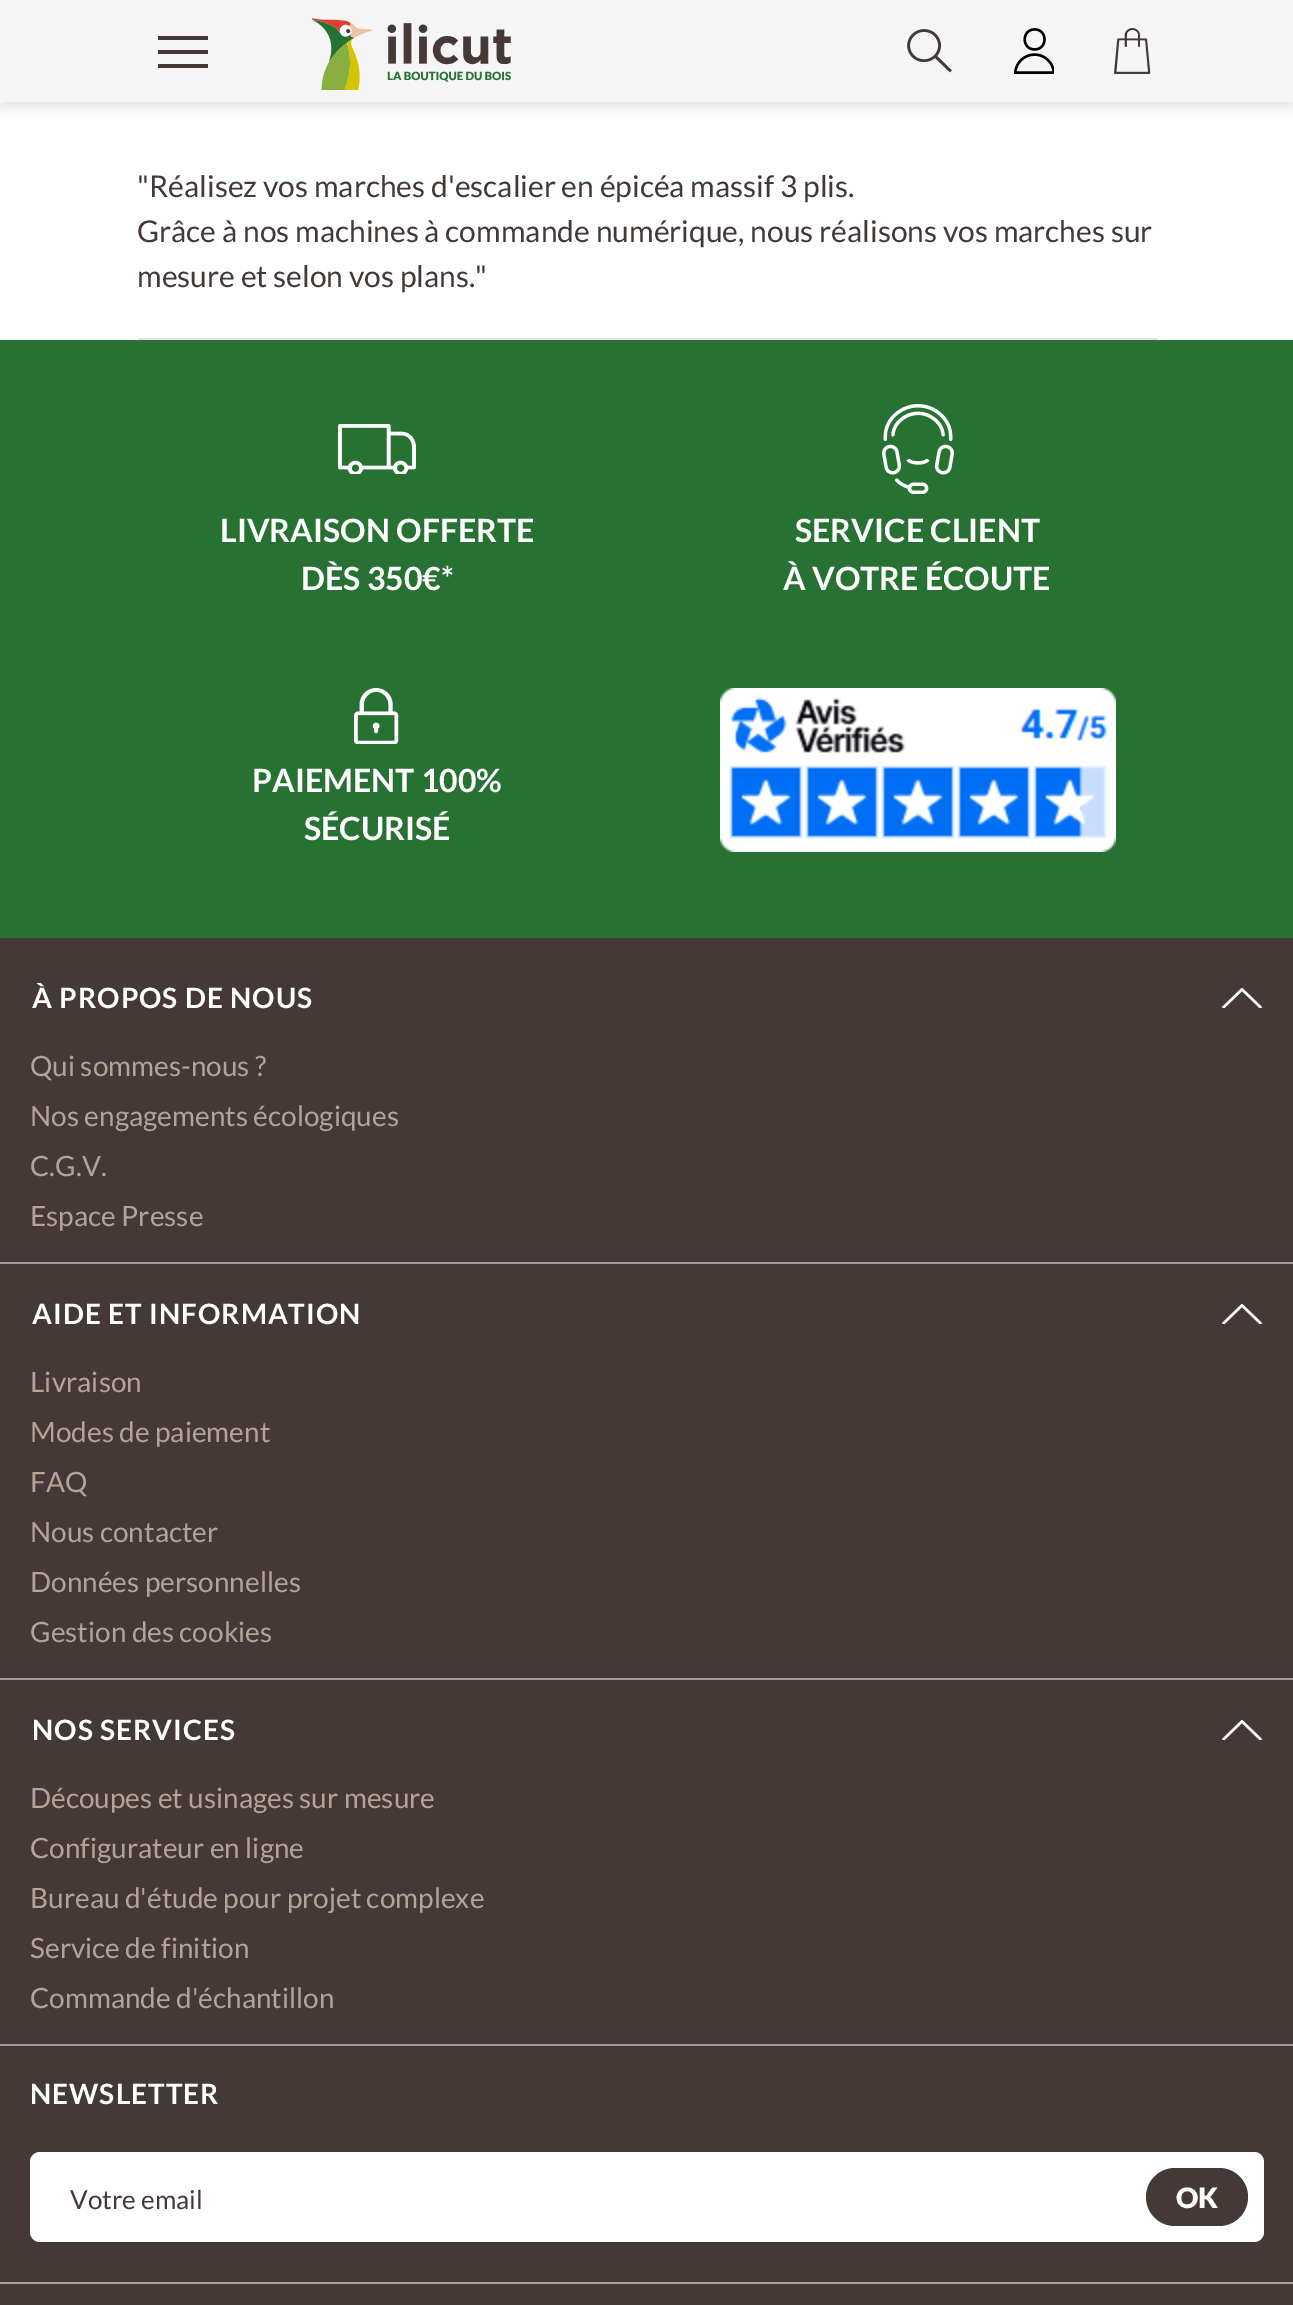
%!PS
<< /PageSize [1293 2305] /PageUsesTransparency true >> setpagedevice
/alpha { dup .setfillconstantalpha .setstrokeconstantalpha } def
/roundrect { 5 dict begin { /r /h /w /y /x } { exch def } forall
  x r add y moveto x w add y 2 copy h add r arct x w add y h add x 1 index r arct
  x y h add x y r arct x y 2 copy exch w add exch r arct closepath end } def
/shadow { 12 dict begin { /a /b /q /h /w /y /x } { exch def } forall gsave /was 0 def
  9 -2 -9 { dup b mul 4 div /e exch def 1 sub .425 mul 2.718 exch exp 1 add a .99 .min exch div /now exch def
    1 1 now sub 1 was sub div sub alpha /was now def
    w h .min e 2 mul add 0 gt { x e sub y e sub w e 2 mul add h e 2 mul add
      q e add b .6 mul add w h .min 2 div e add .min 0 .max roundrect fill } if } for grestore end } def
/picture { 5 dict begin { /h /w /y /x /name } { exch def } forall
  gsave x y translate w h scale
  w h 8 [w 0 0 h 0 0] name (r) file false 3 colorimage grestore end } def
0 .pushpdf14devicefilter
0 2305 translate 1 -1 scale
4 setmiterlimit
1 setgray
0 0 1293 2305 rectfill
0 setgray
0 6 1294 102 0 6 0.1 shadow
0.961 setgray
0 0 1293 102 rectfill
0.267 0.224 0.216 setrgbcolor
158 36 50 4 rectfill
158 50 50 4 rectfill
158 64 50 4 rectfill
(img1.rgb) 312 18 199 72 picture
(img2.rgb) 907 29 45 44 picture
(img3.rgb) 1014 28 40 46 picture
(img4.rgb) 1114 28 37 46 picture
0.89 0.882 0.882 setrgbcolor
138 338 1020 2 rectfill
/Lato-Regular [30 0 0 -30 0 0] selectfont
0.267 0.224 0.216 setrgbcolor
137 197 moveto ("Réalisez vos marches d'escalier en épicéa massif 3 plis.) show
137 242 moveto (Grâce à nos machines à commande numérique, nous réalisons vos marches sur) show
137 287 moveto (mesure et selon vos plans.") show
0.153 0.447 0.196 setrgbcolor
0 340 1293 598 rectfill
(img5.rgb) 338 424 78 50 picture
/Lato-Bold [32 0 0 -32 0 0] selectfont
1 setgray
220 542 moveto (LIVRAISON OFFERTE) show
301 590 moveto (DÈS 350€*) show
(img6.rgb) 882 404 72 90 picture
795 542 moveto (SERVICE CLIENT) show
783 590 moveto (À VOTRE ÉCOUTE) show
(img7.rgb) 354 688 45 56 picture
252 792 moveto (PAIEMENT 100%) show
304 840 moveto (SÉCURISÉ) show
(img8.rgb) 720 688 396 164 picture
0.267 0.224 0.216 setrgbcolor
0 938 1293 1367 rectfill
0.702 0.639 0.596 setrgbcolor
0 2282 1293 2 rectfill
/Lato-Bold [28 0 0 -28 0 0] selectfont
1 setgray
32 1008 moveto 1 0 (À PROPOS DE NOUS) ashow
(img9.rgb) 1222 988 40 20 picture
/Lato-Regular [28 0 0 -28 0 0] selectfont
0.702 0.639 0.596 setrgbcolor
30 1076 moveto (Qui sommes-nous ?) show
30 1126 moveto (Nos engagements écologiques) show
30 1176 moveto (C.G.V.) show
30 1226 moveto (Espace Presse) show
0.635 0.612 0.608 setrgbcolor
0 1262 1293 2 rectfill
/Lato-Bold [28 0 0 -28 0 0] selectfont
1 setgray
32 1324 moveto 1 0 (AIDE ET INFORMATION) ashow
(img9.rgb) 1222 1304 40 20 picture
/Lato-Regular [28 0 0 -28 0 0] selectfont
0.702 0.639 0.596 setrgbcolor
30 1392 moveto (Livraison) show
30 1442 moveto (Modes de paiement) show
30 1492 moveto (FAQ) show
30 1542 moveto (Nous contacter) show
30 1592 moveto (Données personnelles) show
30 1642 moveto (Gestion des cookies) show
0.635 0.612 0.608 setrgbcolor
0 1678 1293 2 rectfill
/Lato-Bold [28 0 0 -28 0 0] selectfont
1 setgray
32 1740 moveto 1 0 (NOS SERVICES) ashow
(img9.rgb) 1222 1720 40 20 picture
/Lato-Regular [28 0 0 -28 0 0] selectfont
0.702 0.639 0.596 setrgbcolor
30 1808 moveto (Découpes et usinages sur mesure) show
30 1858 moveto (Configurateur en ligne) show
30 1908 moveto (Bureau d'étude pour projet complexe) show
30 1958 moveto (Service de finition) show
30 2008 moveto (Commande d'échantillon) show
0.635 0.612 0.608 setrgbcolor
0 2044 1293 2 rectfill
/Lato-Bold [28 0 0 -28 0 0] selectfont
1 setgray
30 2104 moveto 1 0 (NEWSLETTER) ashow
30 2152 1234 90 10 roundrect fill
/Lato-Regular [26 0 0 -26 0 0] selectfont
0.267 0.224 0.216 setrgbcolor
70 2209 moveto (Votre email) show
1146 2168 102 58 29 roundrect fill
/Lato-Black [28 0 0 -28 0 0] selectfont
1 setgray
1176 2208 moveto (OK) show
.poppdf14devicefilter showpage
